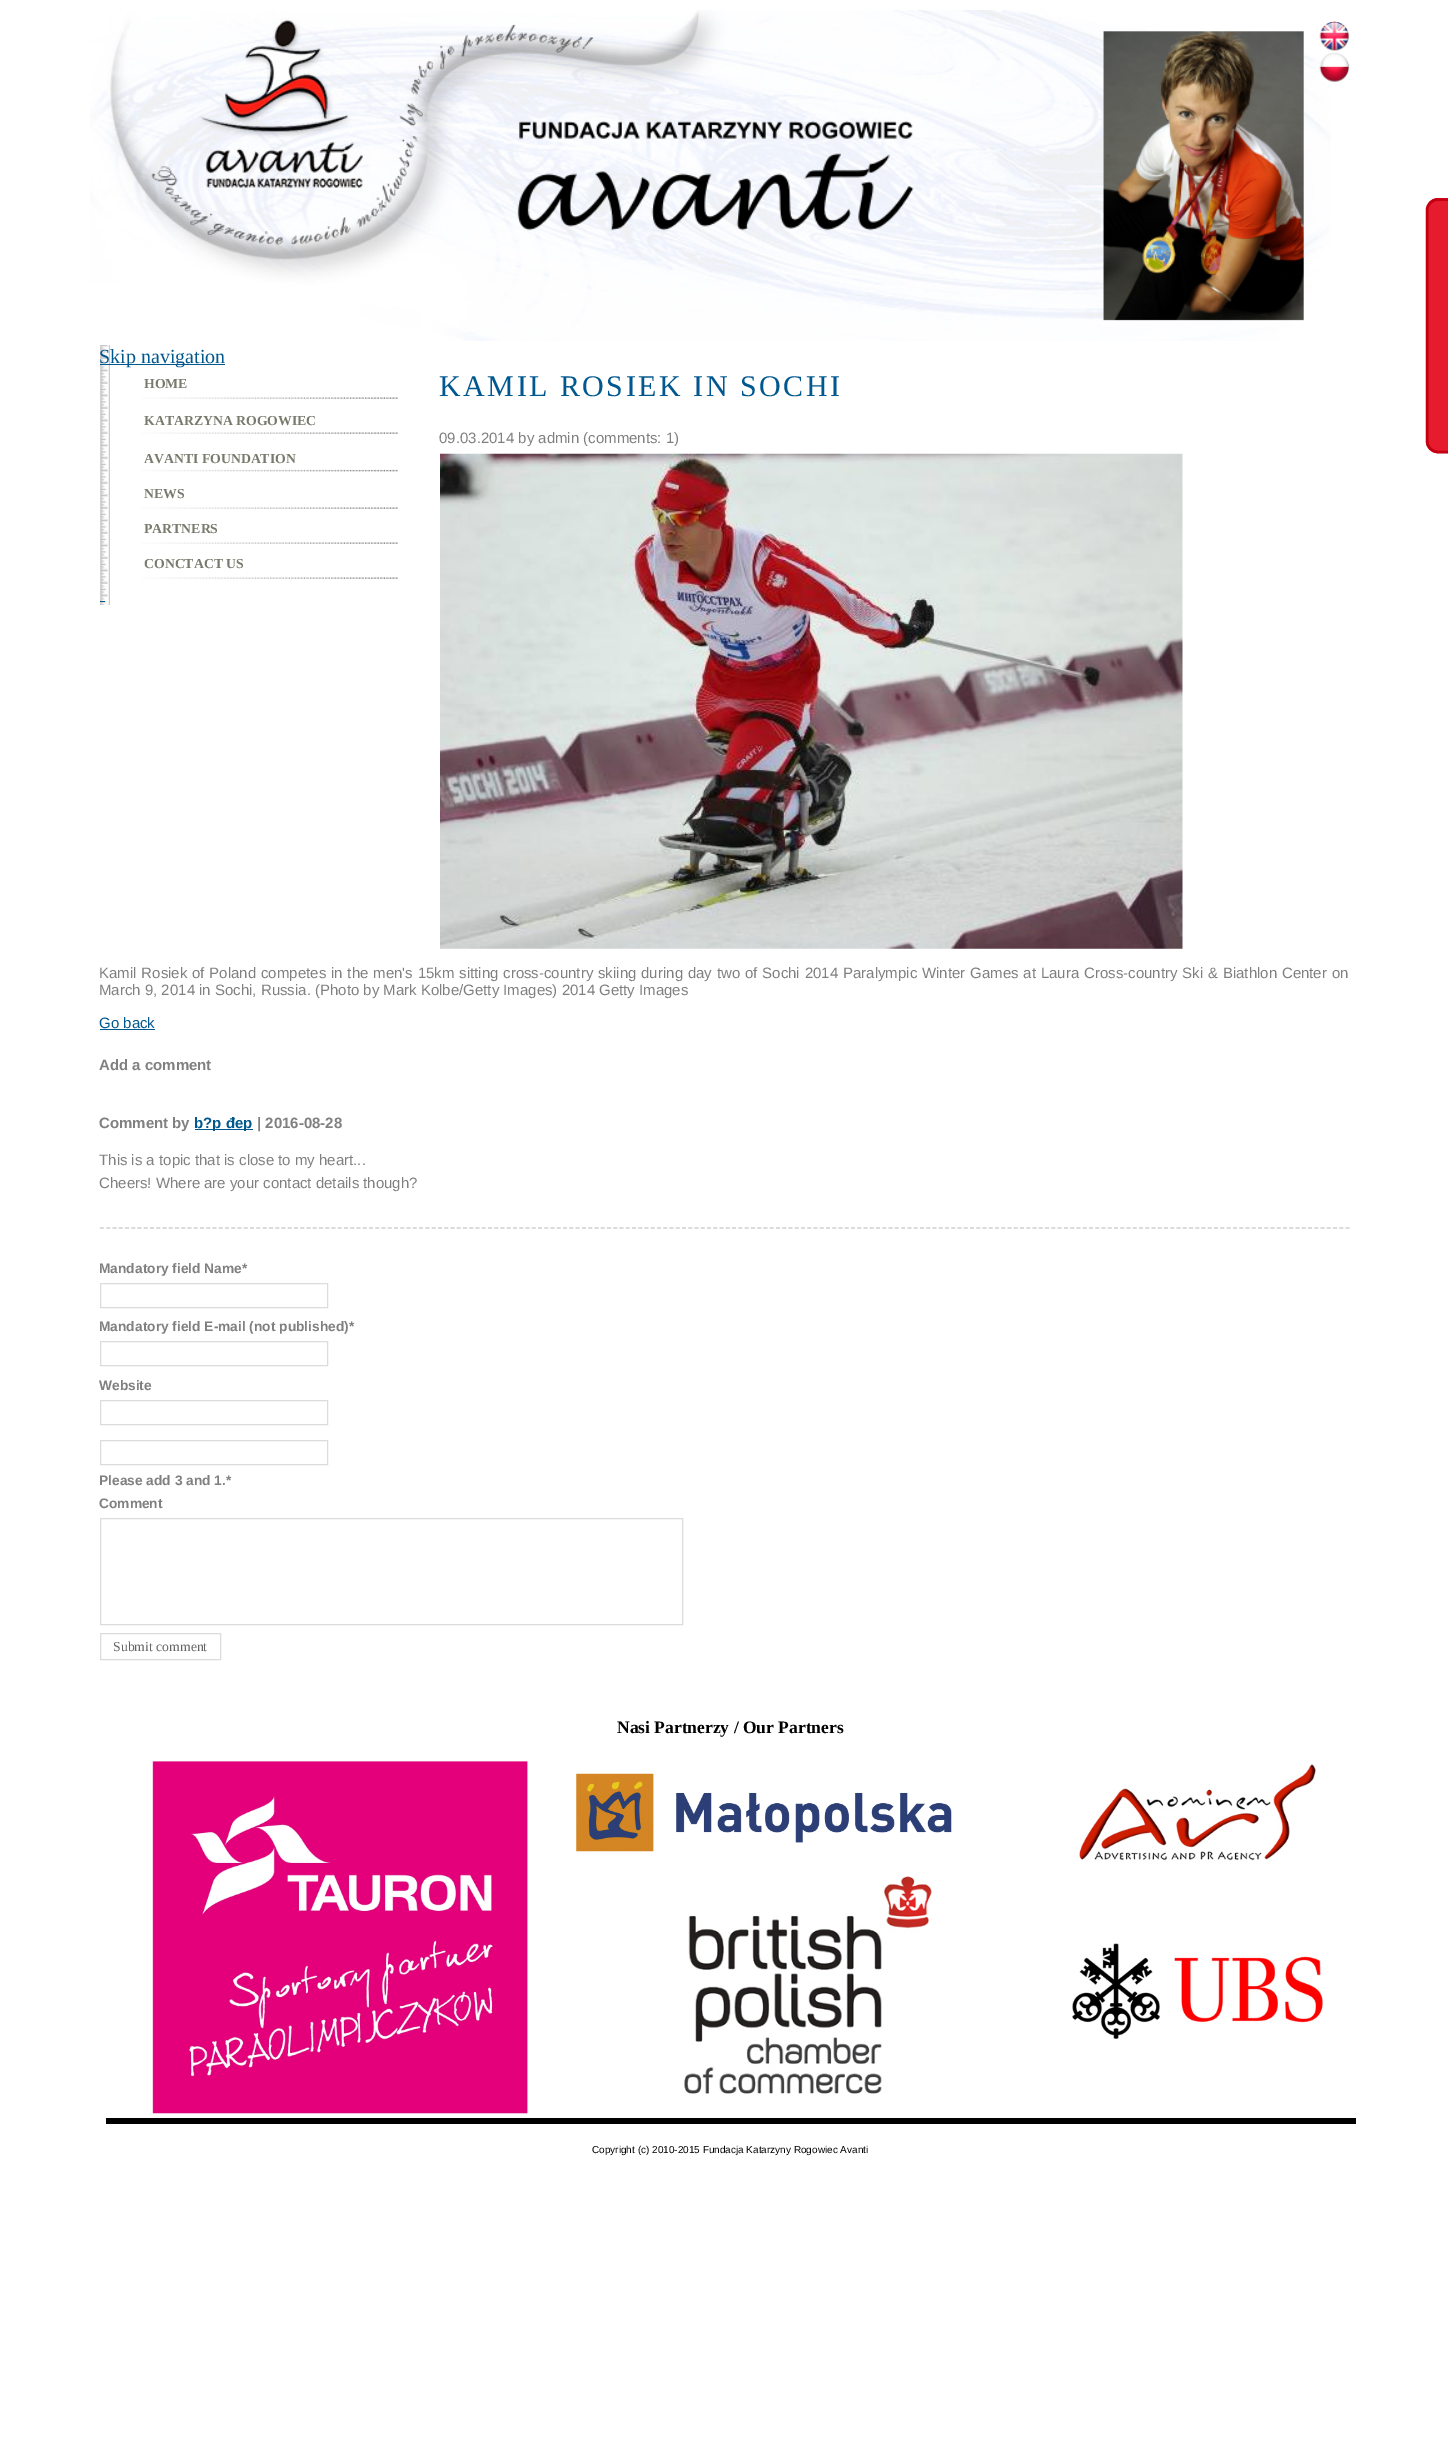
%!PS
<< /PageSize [1448 2455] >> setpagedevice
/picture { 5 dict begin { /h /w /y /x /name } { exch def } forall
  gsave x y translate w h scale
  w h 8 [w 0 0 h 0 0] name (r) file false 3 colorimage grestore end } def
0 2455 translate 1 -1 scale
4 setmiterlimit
1 setgray
0 0 1448 2455 rectfill
(img1.rgb) 90 10 1241 331 picture
(img2.rgb) 1319 21 31 30 picture
(img3.rgb) 1319 52 31 30 picture
(img4.rgb) 100 345 10 260 picture
0.004 0.345 0.561 setrgbcolor
100 364 125 1 rectfill
/LiberationSerif-Regular [20 0 0 -20 0 0] selectfont
99 363 moveto (Skip navigation) show
(img5.rgb) 141 397 257 2 picture
/LiberationSerif-Bold [13.75 0 0 -13.75 0 0] selectfont
0.475 0.478 0.427 setrgbcolor
144 388 moveto (HOME) show
(img5.rgb) 141 432 257 2 picture
144 425 moveto (KATARZYNA ROGOWIEC) show
(img6.rgb) 141 469 257 3 picture
144 463 moveto (AVANTI FOUNDATION) show
(img5.rgb) 141 507 257 2 picture
144 498 moveto (NEWS) show
(img5.rgb) 141 542 257 2 picture
144 533 moveto (PARTNERS) show
(img5.rgb) 141 577 257 2 picture
144 568 moveto (CONCTACT US) show
0.004 0.345 0.561 setrgbcolor
100 601 5 1 rectfill
/LiberationSerif-Regular [30 0 0 -30 0 0] selectfont
439 396 moveto 2.5 0 (KAMIL ROSIEK IN SOCHI) ashow
/LiberationSans-Regular [15 0 0 -15 0 0] selectfont
0.502 setgray
439 443 moveto (09.03.2014 by admin \(comments: 1\)) show
(img7.rgb) 440 453 743 496 picture
99 978 moveto 0.7 0 32 (Kamil Rosiek of Poland competes in the men's 15km sitting cross-country skiing during day two of Sochi 2014 Paralympic Winter Games at Laura Cross-country Ski & Biathlon Center on) widthshow
99 995 moveto (March 9, 2014 in Sochi, Russia. \(Photo by Mark Kolbe/Getty Images\) 2014 Getty Images) show
0.004 0.345 0.561 setrgbcolor
99 1028 moveto (Go back) show
100 1029 55 1 rectfill
/LiberationSans-Bold [15 0 0 -15 0 0] selectfont
0.502 setgray
99 1070 moveto (Add a comment) show
0.808 setgray
1.2 setlinewidth
[3.75 2.51] 0 setdash
newpath 100 1228 moveto 1350 1228 lineto stroke
0.502 setgray
99 1128 moveto (Comment by) show
0.004 0.345 0.561 setrgbcolor
195 1129 58 1 rectfill
194 1128 moveto (b?p đep) show
0.502 setgray
257 1128 moveto (| 2016-08-28) show
/LiberationSans-Regular [15 0 0 -15 0 0] selectfont
99 1165 moveto (This is a topic that is close to my heart...) show
99 1188 moveto (Cheers! Where are your contact details though?) show
/LiberationSans-Bold [13.75 0 0 -13.75 0 0] selectfont
99 1273 moveto (Mandatory field Name*) show
0.871 0.859 0.859 setrgbcolor
1 setlinewidth
[] 0 setdash
100.5 1283.5 227 24 rectstroke
0.502 setgray
99 1331 moveto (Mandatory field E-mail \(not published\)*) show
0.871 0.859 0.859 setrgbcolor
100.5 1341.5 227 24 rectstroke
0.502 setgray
99 1390 moveto (Website) show
0.871 0.859 0.859 setrgbcolor
100.5 1400.5 227 24 rectstroke
100.5 1440.5 227 24 rectstroke
0.502 setgray
99 1485 moveto (Please add 3 and 1.*) show
99 1508 moveto (Comment) show
0.871 0.859 0.859 setrgbcolor
100.5 1518.5 582 106 rectstroke
100.5 1633.5 120 26 rectstroke
/LiberationSerif-Regular [13.75 0 0 -13.75 0 0] selectfont
0.396 setgray
113 1651 moveto (Submit comment) show
/LiberationSerif-Bold [17.5 0 0 -17.5 0 0] selectfont
0 setgray
617 1733 moveto (Nasi Partnerzy / Our Partners) show
(img8.rgb) 152 1761 376 353 picture
(img9.rgb) 576 1773 376 79 picture
(img10.rgb) 1079 1764 237 97 picture
(img11.rgb) 684 1876 248 218 picture
(img12.rgb) 1072 1943 251 96 picture
106 2118 1250 6 rectfill
/LiberationSans-Regular [10 0 0 -10 0 0] selectfont
592 2153 moveto (Copyright \(c\) 2010-2015 Fundacja Katarzyny Rogowiec Avanti) show
0.902 0.106 0.176 setrgbcolor
newpath 1426 441 moveto 1426 211 lineto 1426 204 1431 198 1438 198 curveto 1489 198 lineto 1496 198 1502 204 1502 211 curveto 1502 441 lineto 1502 448 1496 453 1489 453 curveto 1438 453 lineto 1431 453 1426 448 1426 441 curveto closepath fill
0.765 0 0.067 setrgbcolor
2.5 setlinewidth
newpath 1427 440.5 moveto 1427 210.5 lineto 1427 204.5 1432 199.5 1438 199.5 curveto 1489.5 199.5 lineto 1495.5 199.5 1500.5 204.5 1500.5 210.5 curveto 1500.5 440.5 lineto 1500.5 447 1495.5 452 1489.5 452 curveto 1438 452 lineto 1432 452 1427 447 1427 440.5 curveto closepath stroke
showpage
